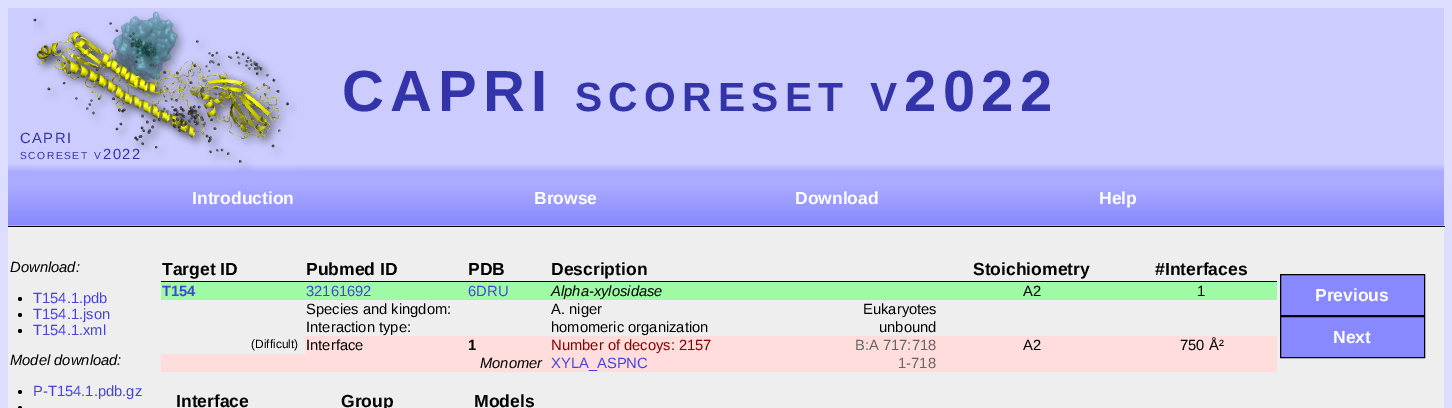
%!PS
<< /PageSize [1452 408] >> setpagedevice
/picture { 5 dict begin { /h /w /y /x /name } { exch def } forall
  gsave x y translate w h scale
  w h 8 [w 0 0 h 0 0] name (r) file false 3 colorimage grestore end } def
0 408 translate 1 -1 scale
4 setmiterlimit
0.867 0.867 1 setrgbcolor
0 0 1452 408 rectfill
gsave newpath 8 8 moveto 1444 8 lineto 1444 172 lineto 8 172 lineto closepath clip newpath
<< /ShadingType 2 /ColorSpace /DeviceRGB /Coords [726 8 726 172] /Extend [true true] /Function << /FunctionType 3 /Domain [0 1] /Functions [<< /FunctionType 2 /Domain [0 1] /C0 [0.8 0.8 1] /C1 [0.8 0.8 1] /N 1 >> << /FunctionType 2 /Domain [0 1] /C0 [0.8 0.8 1] /C1 [0.667 0.667 1] /N 1 >>] /Bounds [0.95] /Encode [0 1 0 1] >> >> shfill grestore
/LiberationSans-Bold [58 0 0 -58 0 0] selectfont
0.2 0.2 0.667 setrgbcolor
342 111 moveto 6.25 0 (CAPRI) ashow
/LiberationSans-Bold [40.75 0 0 -40.75 0 0] selectfont
575 111 moveto 6.25 0 (SCORESET) ashow
870 111 moveto 6.25 0 (V) ashow
/LiberationSans-Bold [58 0 0 -58 0 0] selectfont
904 111 moveto 6.25 0 (2022) ashow
(img1.rgb) 33 11 264 160 picture
/LiberationSans-Regular [14.75 0 0 -14.75 0 0] selectfont
20 143 moveto 1.5 0 (CAPRI) ashow
/LiberationSans-Regular [10.25 0 0 -10.25 0 0] selectfont
20 159 moveto 1.5 0 (SCORESET) ashow
94 159 moveto 1.5 0 (V) ashow
/LiberationSans-Regular [14.75 0 0 -14.75 0 0] selectfont
103 159 moveto 1.5 0 (2022) ashow
gsave newpath 8 172 moveto 1444 172 lineto 1444 225 lineto 8 225 lineto closepath clip newpath
<< /ShadingType 2 /ColorSpace /DeviceRGB /Coords [726 172 726 225] /Extend [true true] /Function << /FunctionType 3 /Domain [0 1] /Functions [<< /FunctionType 2 /Domain [0 1] /C0 [0.667 0.667 1] /C1 [0.667 0.667 1] /N 1 >> << /FunctionType 2 /Domain [0 1] /C0 [0.667 0.667 1] /C1 [0.533 0.533 1] /N 1 >>] /Bounds [0.25] /Encode [0 1 0 1] >> >> shfill grestore
gsave newpath 8 225 moveto 1444 225 lineto 1444 226 lineto 8 226 lineto closepath clip newpath
<< /ShadingType 2 /ColorSpace /DeviceRGB /Coords [726 225 726 278] /Extend [true true] /Function << /FunctionType 3 /Domain [0 1] /Functions [<< /FunctionType 2 /Domain [0 1] /C0 [0.667 0.667 1] /C1 [0.667 0.667 1] /N 1 >> << /FunctionType 2 /Domain [0 1] /C0 [0.667 0.667 1] /C1 [0.533 0.533 1] /N 1 >>] /Bounds [0.25] /Encode [0 1 0 1] >> >> shfill grestore
0 setgray
8 226 1437 1 rectfill
/LiberationSans-Bold [17.5 0 0 -17.5 0 0] selectfont
1 setgray
192 204 moveto (Introduction) show
534 204 moveto (Browse) show
795 204 moveto (Download) show
1099 204 moveto (Help) show
0.933 setgray
8 227 1436 181 rectfill
/LiberationSans-Italic [14.75 0 0 -14.75 0 0] selectfont
0 setgray
10 272 moveto (Download:) show
newpath 20 299 2 0 360 arc closepath fill
/LiberationSans-Regular [14.75 0 0 -14.75 0 0] selectfont
0.267 0.267 0.867 setrgbcolor
33 303 moveto (T154.1.pdb) show
0 setgray
newpath 20 315 2 0 360 arc closepath fill
0.267 0.267 0.867 setrgbcolor
33 319 moveto (T154.1.json) show
0 setgray
newpath 20 331 2 0 360 arc closepath fill
0.267 0.267 0.867 setrgbcolor
33 335 moveto (T154.1.xml) show
/LiberationSans-Italic [14.75 0 0 -14.75 0 0] selectfont
0 setgray
10 365 moveto (Model download:) show
newpath 20 392 2 0 360 arc closepath fill
/LiberationSans-Regular [14.75 0 0 -14.75 0 0] selectfont
0.267 0.267 0.867 setrgbcolor
33 396 moveto (P-T154.1.pdb.gz) show
0 setgray
newpath 20 408 2 0 360 arc closepath fill
/LiberationSans-Bold [17.5 0 0 -17.5 0 0] selectfont
162 275 moveto (Target ID) show
306 275 moveto (Pubmed ID) show
468 275 moveto (PDB) show
551 275 moveto (Description) show
973 275 moveto (Stoichiometry) show
1155 275 moveto (#Interfaces) show
0.624 0.98 0.643 setrgbcolor
161 282 1116 18 rectfill
0 setgray
161 281 1116 1 rectfill
/LiberationSans-Bold [14.75 0 0 -14.75 0 0] selectfont
0.267 0.267 0.867 setrgbcolor
162 296 moveto (T154) show
/LiberationSans-Regular [14.75 0 0 -14.75 0 0] selectfont
306 296 moveto (32161692) show
468 296 moveto (6DRU) show
/LiberationSans-Italic [14.75 0 0 -14.75 0 0] selectfont
0 setgray
551 296 moveto (Alpha-xylosidase) show
/LiberationSans-Regular [14.75 0 0 -14.75 0 0] selectfont
1023 296 moveto (A2) show
1197 296 moveto (1) show
306 314 moveto (Species and kingdom:) show
551 314 moveto (A. niger) show
863 314 moveto (Eukaryotes) show
306 332 moveto (Interaction type:) show
551 332 moveto (homomeric organization) show
879 332 moveto (unbound) show
1 0.867 0.867 setrgbcolor
305 336 972 18 rectfill
/LiberationSans-Regular [12 0 0 -12 0 0] selectfont
0 setgray
251 348 moveto (\(Difficult\)) show
/LiberationSans-Regular [14.75 0 0 -14.75 0 0] selectfont
306 350 moveto (Interface) show
/LiberationSans-Bold [14.75 0 0 -14.75 0 0] selectfont
468 350 moveto (1) show
/LiberationSans-Regular [14.75 0 0 -14.75 0 0] selectfont
0.533 0 0 setrgbcolor
551 350 moveto (Number of decoys: 2157) show
0.4 setgray
855 350 moveto (B:A 717:718) show
0 setgray
1023 350 moveto (A2) show
1180 350 moveto (750 Å²) show
1 0.867 0.867 setrgbcolor
161 354 1116 18 rectfill
/LiberationSans-Italic [14.75 0 0 -14.75 0 0] selectfont
0 setgray
480 368 moveto (Monomer) show
/LiberationSans-Regular [14.75 0 0 -14.75 0 0] selectfont
0.267 0.267 0.867 setrgbcolor
551 368 moveto (XYLA_ASPNC) show
0.4 setgray
898 368 moveto (1-718) show
/LiberationSans-Bold [17.5 0 0 -17.5 0 0] selectfont
0 setgray
176 407 moveto (Interface) show
341 407 moveto (Group) show
474 407 moveto (Models) show
0.533 0.533 1 setrgbcolor
newpath 1280.5 274.5 moveto 1424.5 274.5 lineto 1424.5 315.5 lineto 1280.5 315.5 lineto closepath gsave fill grestore
0 setgray
stroke
1 setgray
1315 301 moveto (Previous) show
0.533 0.533 1 setrgbcolor
newpath 1280.5 316.5 moveto 1424.5 316.5 lineto 1424.5 357.5 lineto 1280.5 357.5 lineto closepath gsave fill grestore
0 setgray
stroke
1 setgray
1333 343 moveto (Next) show
showpage
